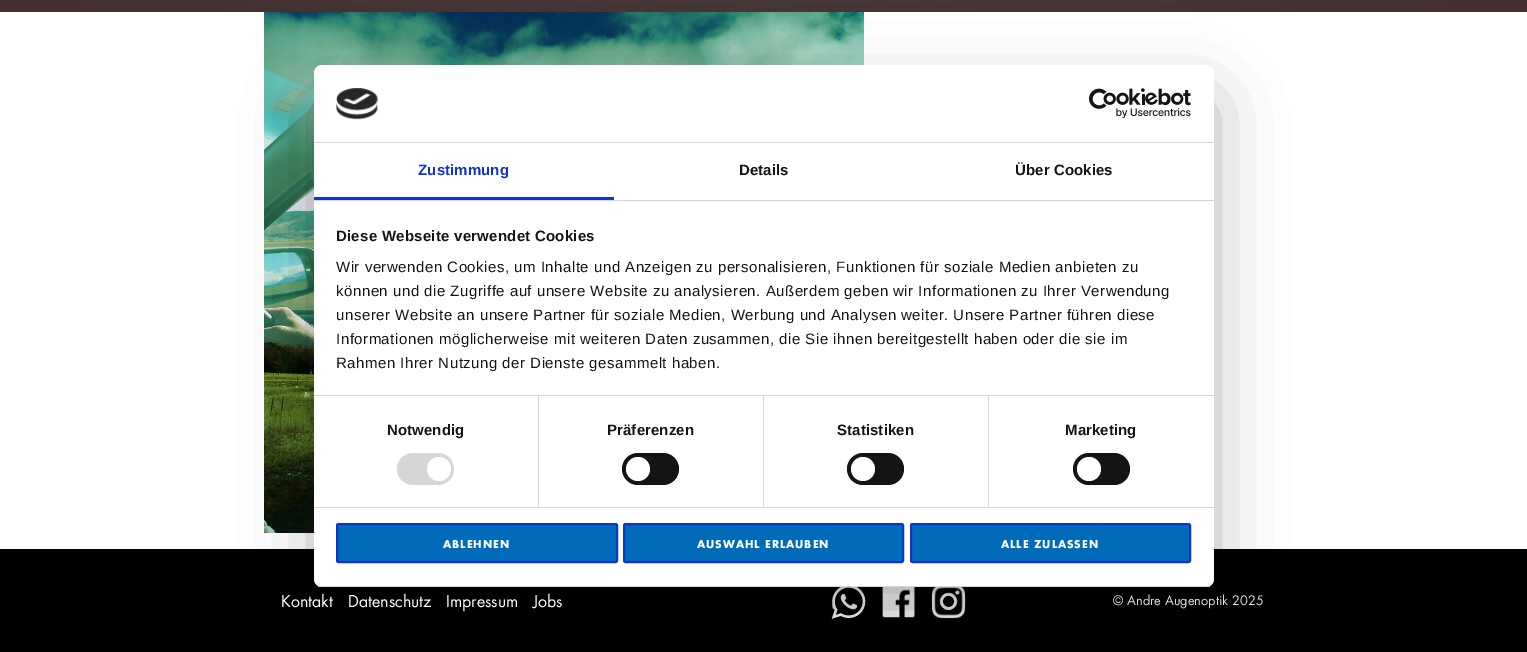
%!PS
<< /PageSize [1527 652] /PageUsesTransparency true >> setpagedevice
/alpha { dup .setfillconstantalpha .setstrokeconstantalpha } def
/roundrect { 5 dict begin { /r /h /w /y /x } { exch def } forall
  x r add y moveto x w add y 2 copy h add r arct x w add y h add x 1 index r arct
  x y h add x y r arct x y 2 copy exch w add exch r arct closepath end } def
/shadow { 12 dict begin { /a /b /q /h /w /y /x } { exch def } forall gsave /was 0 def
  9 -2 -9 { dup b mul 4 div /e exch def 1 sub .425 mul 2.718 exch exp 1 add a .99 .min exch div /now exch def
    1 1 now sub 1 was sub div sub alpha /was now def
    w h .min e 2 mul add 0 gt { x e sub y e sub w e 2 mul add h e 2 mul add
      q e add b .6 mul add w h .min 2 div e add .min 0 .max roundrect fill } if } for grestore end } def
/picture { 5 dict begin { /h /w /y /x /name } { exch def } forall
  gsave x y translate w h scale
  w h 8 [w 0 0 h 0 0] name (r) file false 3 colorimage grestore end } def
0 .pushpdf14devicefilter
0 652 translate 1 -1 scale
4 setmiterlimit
1 setgray
0 0 1527 652 rectfill
gsave newpath 0 0 moveto 1527 0 lineto 1527 12 lineto 0 12 lineto closepath clip newpath 764 -63 translate 1080 106 scale
<< /ShadingType 3 /ColorSpace /DeviceRGB /Coords [0 0 0 0 0 1] /Extend [true true] /Function << /FunctionType 3 /Domain [0 1] /Functions [<< /FunctionType 2 /Domain [0 1] /C0 [0.302 0.302 0.302] /C1 [0.263 0.184 0.184] /N 1 >> << /FunctionType 2 /Domain [0 1] /C0 [0.263 0.184 0.184] /C1 [0.263 0.184 0.184] /N 1 >>] /Bounds [0.9] /Encode [0 1 0 1] >> >> shfill grestore
(img1.rgb) 264 12 600 521 picture
0 setgray
0 549 1527 103 rectfill
(img4.rgb) 831 587 35 32 picture
(img5.rgb) 882 587 34 31 picture
(img6.rgb) 931 587 35 32 picture
314 97 900 522 8 34 0.3 shadow
1 setgray
314 65 900 522 8 roundrect fill
0.839 setgray
314 142 900 1 rectfill
(img2.rgb) 336 88 42 32 picture
(img3.rgb) 1089 88 102 30 picture
314 200 900 1 rectfill
0.063 0.196 0.812 setrgbcolor
314 197 300 3 rectfill
/LiberationSans-Bold [15 0 0 -15 0 0] selectfont
418 175 moveto 0.1 0 (Zustimmung) ashow
0.078 setgray
739 175 moveto 0.1 0 (Details) ashow
1015 175 moveto 0.1 0 (Über Cookies) ashow
0.839 setgray
314 395 900 1 rectfill
0.078 setgray
336 241 moveto 0.25 0 (Diese Webseite verwendet Cookies) ashow
/LiberationSans-Regular [15 0 0 -15 0 0] selectfont
336 272 moveto 0.5 0 (Wir verwenden Cookies, um Inhalte und Anzeigen zu personalisieren, Funktionen für soziale Medien anbieten zu) ashow
336 296 moveto 0.5 0 (können und die Zugriffe auf unsere Website zu analysieren. Außerdem geben wir Informationen zu Ihrer Verwendung) ashow
336 320 moveto 0.5 0 (unserer Website an unsere Partner für soziale Medien, Werbung und Analysen weiter. Unsere Partner führen diese) ashow
336 344 moveto 0.5 0 (Informationen möglicherweise mit weiteren Daten zusammen, die Sie ihnen bereitgestellt haben oder die sie im) ashow
336 368 moveto 0.5 0 (Rahmen Ihrer Nutzung der Dienste gesammelt haben.) ashow
0.839 setgray
314 507 900 1 rectfill
538 396 1 111 rectfill
/LiberationSans-Bold [15 0 0 -15 0 0] selectfont
0.078 setgray
387 435 moveto 0.1 0 (Notwendig) ashow
0.839 setgray
397 453 57 32 16 roundrect fill
1 setgray
newpath 439 469 12 0 360 arc closepath fill
0.839 setgray
763 396 1 111 rectfill
0.078 setgray
607 435 moveto 0.1 0 (Präferenzen) ashow
622 453 57 32 16 roundrect fill
1 setgray
newpath 638 469 12 0 360 arc closepath fill
0.839 setgray
988 396 1 111 rectfill
0.078 setgray
837 435 moveto 0.1 0 (Statistiken) ashow
847 453 57 32 16 roundrect fill
1 setgray
newpath 863 469 12 0 360 arc closepath fill
0.078 setgray
1065 435 moveto 0.1 0 (Marketing) ashow
1073 453 57 32 16 roundrect fill
1 setgray
newpath 1089 469 12 0 360 arc closepath fill
gsave
314 65 900 522 8 roundrect clip newpath
0.839 setgray
314 586 900 1 rectfill
grestore
0 0.424 0.725 setrgbcolor
337 524 280 38 1.5 roundrect gsave fill grestore
0.063 0.196 0.812 setrgbcolor
2 setlinewidth
stroke
/Futura-Bold [10.5 0 0 -10.5 0 0] selectfont
1 setgray
443 548 moveto 1 0 (ABLEHNEN) ashow
0 0.424 0.725 setrgbcolor
624 524 279 38 1.5 roundrect gsave fill grestore
0.063 0.196 0.812 setrgbcolor
stroke
1 setgray
697 548 moveto 1 0 (AUSWAHL ERLAUBEN) ashow
0 0.424 0.725 setrgbcolor
911 524 279 38 1.5 roundrect gsave fill grestore
0.063 0.196 0.812 setrgbcolor
stroke
1 setgray
1001 548 moveto 1 0 (ALLE ZULASSEN) ashow
/Futura-Regular [16 0 0 -16 0 0] selectfont
281 607 moveto (Kontakt) show
348 607 moveto (Datenschutz) show
446 607 moveto (Impressum) show
533 607 moveto (Jobs) show
/Futura-Regular [12.75 0 0 -12.75 0 0] selectfont
0.867 setgray
1113 605 moveto (© Andre Augenoptik 2025) show
.poppdf14devicefilter showpage
